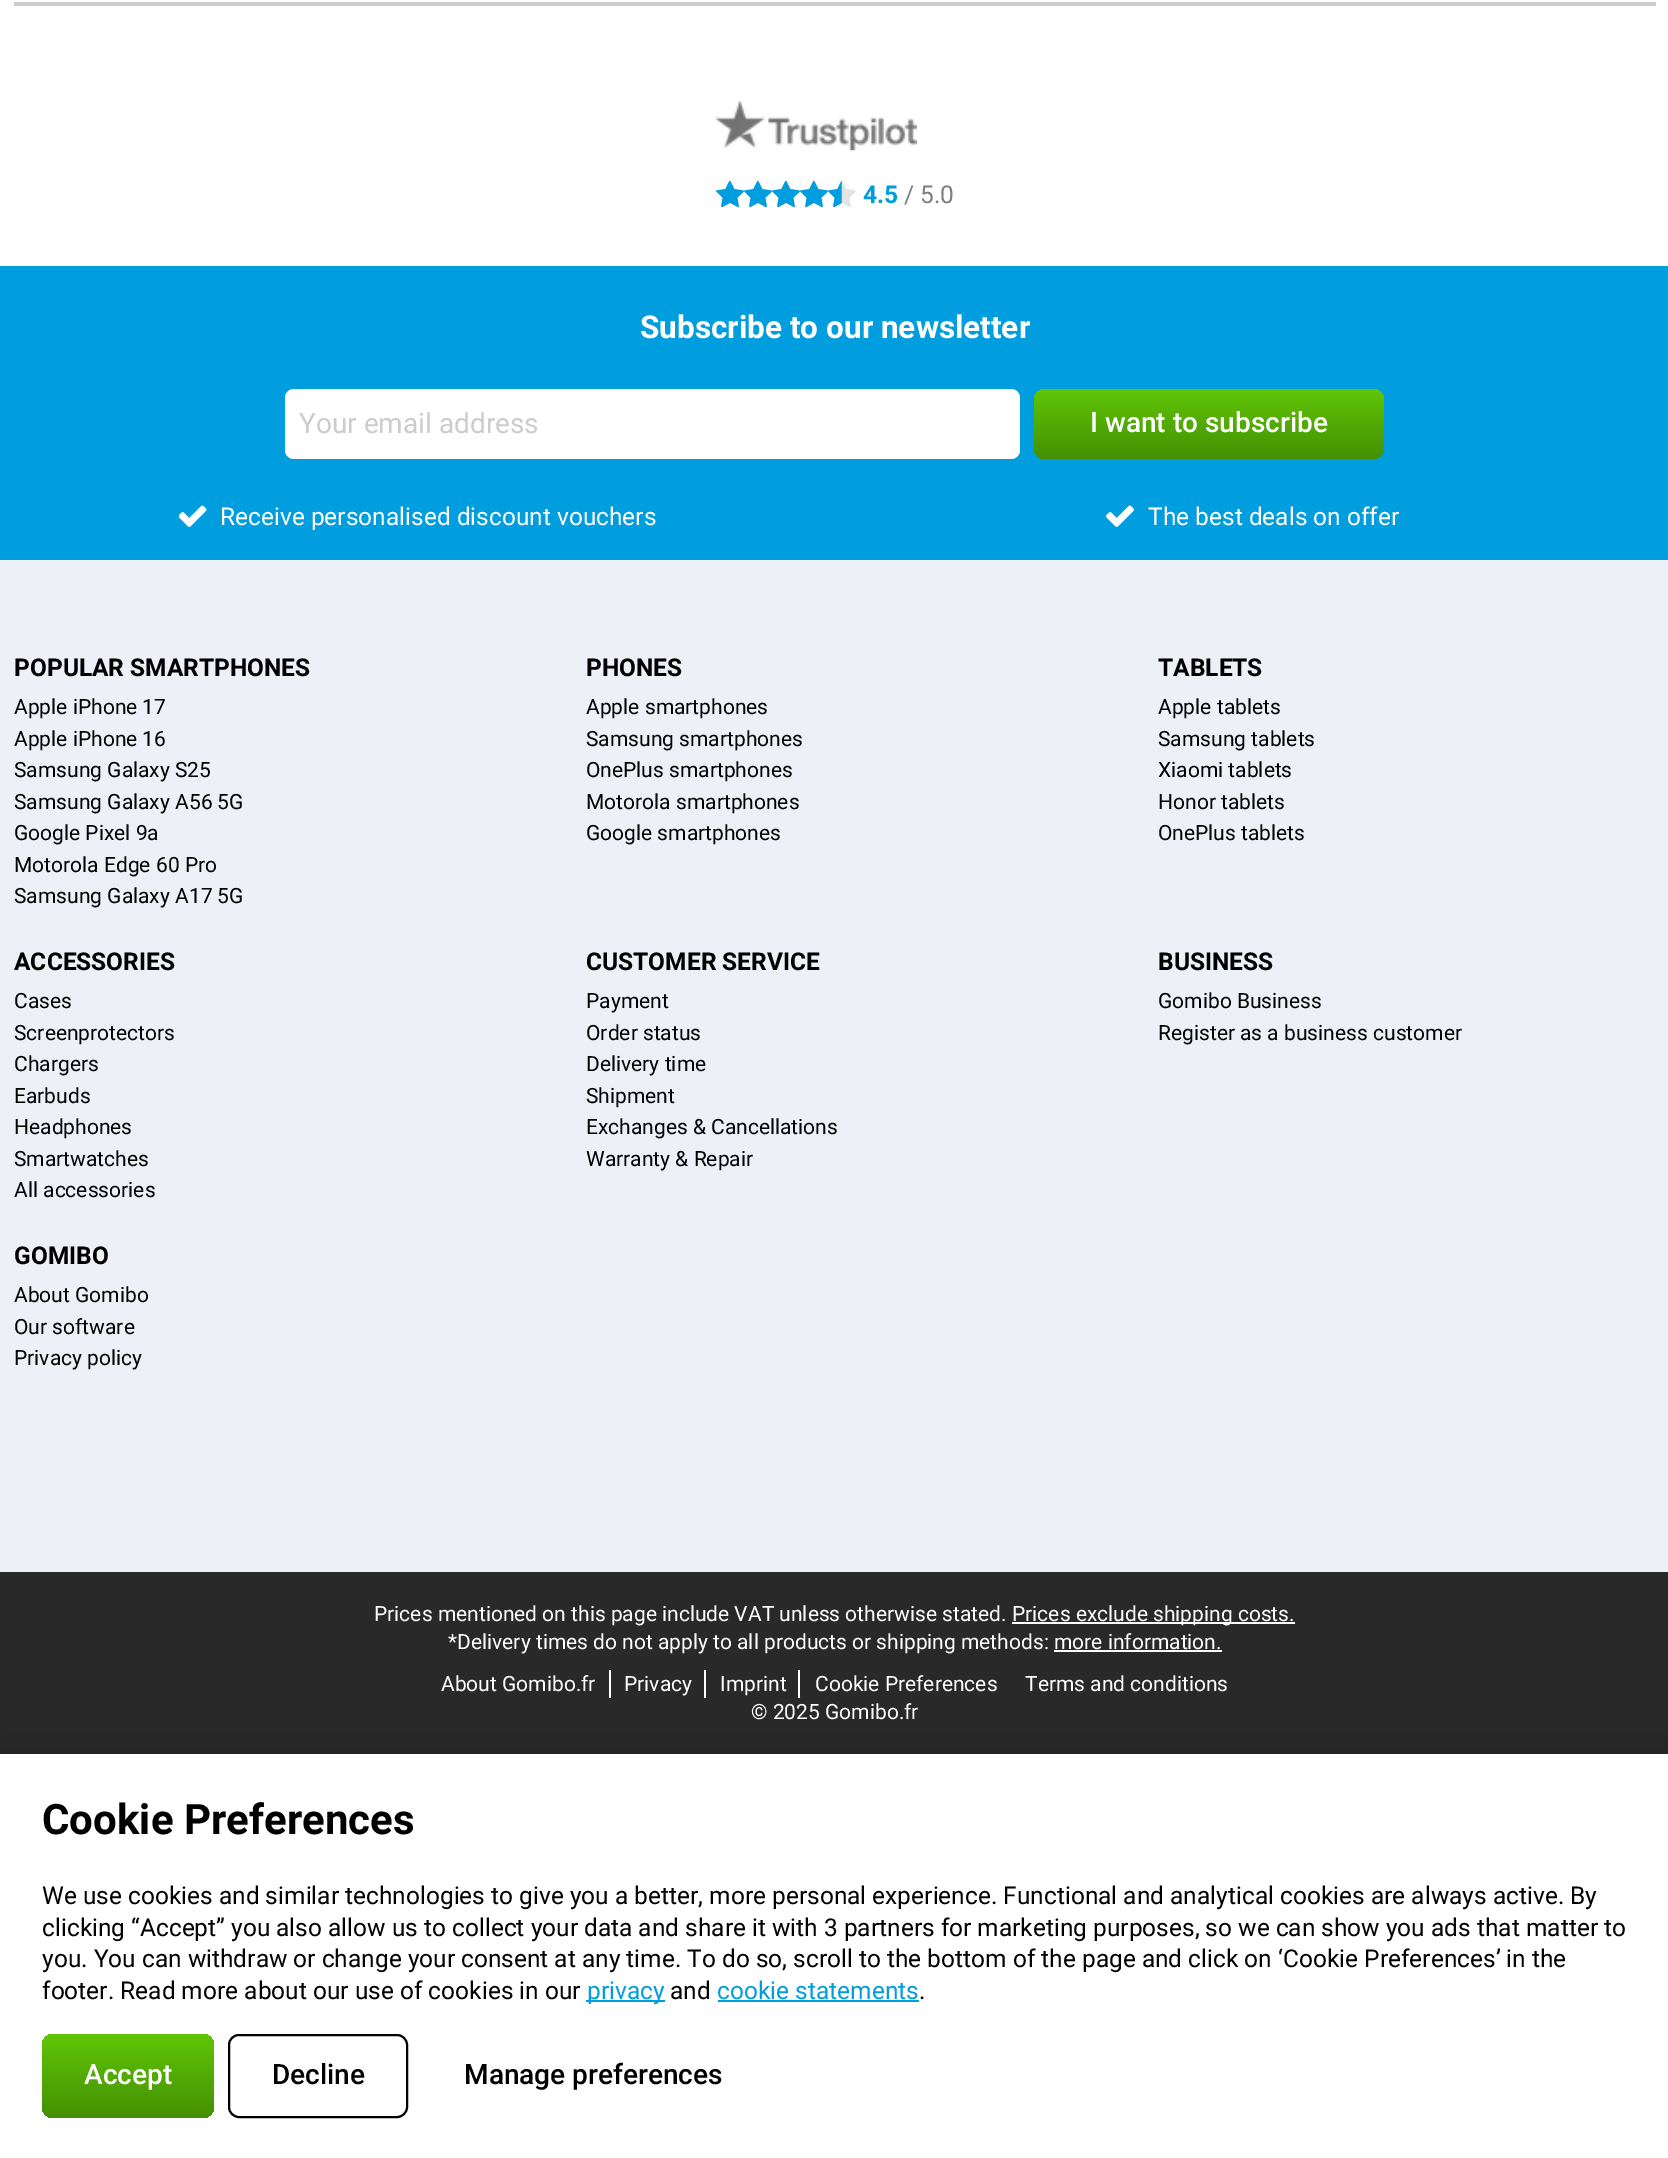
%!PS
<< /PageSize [1668 2158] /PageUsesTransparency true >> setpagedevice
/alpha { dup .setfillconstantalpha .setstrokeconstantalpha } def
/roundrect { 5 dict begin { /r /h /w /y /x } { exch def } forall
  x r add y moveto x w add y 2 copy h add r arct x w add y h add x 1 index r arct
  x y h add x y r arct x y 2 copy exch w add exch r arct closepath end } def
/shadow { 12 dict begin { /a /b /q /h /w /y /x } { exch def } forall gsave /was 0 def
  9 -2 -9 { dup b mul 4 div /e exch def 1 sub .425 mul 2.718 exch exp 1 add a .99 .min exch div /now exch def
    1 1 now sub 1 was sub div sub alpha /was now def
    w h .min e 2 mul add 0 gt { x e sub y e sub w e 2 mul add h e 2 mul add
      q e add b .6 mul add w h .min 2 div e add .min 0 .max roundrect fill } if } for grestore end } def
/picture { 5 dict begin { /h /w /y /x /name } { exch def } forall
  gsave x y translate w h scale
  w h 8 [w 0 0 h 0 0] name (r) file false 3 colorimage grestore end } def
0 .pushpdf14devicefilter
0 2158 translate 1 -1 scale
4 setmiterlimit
1 setgray
0 0 1668 2158 rectfill
0.8 setgray
14 2 1642 4 rectfill
(img1.rgb) 715 101 202 50 picture
(img2.rgb) 715 181 141 26 picture
(img3.rgb) 715 180 127 28 picture
/Roboto-Bold [24.5 0 0 -24.5 0 0] selectfont
0 0.616 0.875 setrgbcolor
863 203 moveto (4.5) show
/Roboto-Regular [24.5 0 0 -24.5 0 0] selectfont
0.49 setgray
904 203 moveto (/ 5.0) show
0 0.616 0.875 setrgbcolor
0 266 1668 294 rectfill
/Roboto-Bold [31.5 0 0 -31.5 0 0] selectfont
1 setgray
640 338 moveto (Subscribe to our newsletter) show
285 389 735 70 9 roundrect fill
/Roboto-Regular [28 0 0 -28 0 0] selectfont
0.8 setgray
299 433 moveto (Your email address) show
gsave 1034 389 350 70 11 roundrect clip newpath
<< /ShadingType 2 /ColorSpace /DeviceRGB /Coords [1209 389 1209 459] /Extend [true true] /Function << /FunctionType 2 /Domain [0 1] /C0 [0.376 0.776 0.027] /C1 [0.267 0.561 0.012] /N 1 >> >> shfill grestore
/Roboto-Medium [28 0 0 -28 0 0] selectfont
1 setgray
1090 432 moveto (I want to subscribe) show
(img4.rgb) 179 505 28 22 picture
/Roboto-Regular [24.5 0 0 -24.5 0 0] selectfont
220 525 moveto (Receive personalised discount vouchers) show
(img5.rgb) 1106 505 28 22 picture
1148 525 moveto (The best deals on offer) show
0.929 0.945 0.969 setrgbcolor
0 560 1668 1012 rectfill
/Roboto-Bold [24.5 0 0 -24.5 0 0] selectfont
0 setgray
14 676 moveto (POPULAR SMARTPHONES) show
/Roboto-Regular [21 0 0 -21 0 0] selectfont
14 714 moveto (Apple iPhone 17) show
14 746 moveto (Apple iPhone 16) show
14 777 moveto (Samsung Galaxy S25) show
14 809 moveto (Samsung Galaxy A56 5G) show
14 840 moveto (Google Pixel 9a) show
14 872 moveto (Motorola Edge 60 Pro) show
14 903 moveto (Samsung Galaxy A17 5G) show
/Roboto-Bold [24.5 0 0 -24.5 0 0] selectfont
586 676 moveto (PHONES) show
/Roboto-Regular [21 0 0 -21 0 0] selectfont
586 714 moveto (Apple smartphones) show
586 746 moveto (Samsung smartphones) show
586 777 moveto (OnePlus smartphones) show
586 809 moveto (Motorola smartphones) show
586 840 moveto (Google smartphones) show
/Roboto-Bold [24.5 0 0 -24.5 0 0] selectfont
1158 676 moveto (TABLETS) show
/Roboto-Regular [21 0 0 -21 0 0] selectfont
1158 714 moveto (Apple tablets) show
1158 746 moveto (Samsung tablets) show
1158 777 moveto (Xiaomi tablets) show
1158 809 moveto (Honor tablets) show
1158 840 moveto (OnePlus tablets) show
/Roboto-Bold [24.5 0 0 -24.5 0 0] selectfont
14 970 moveto (ACCESSORIES) show
/Roboto-Regular [21 0 0 -21 0 0] selectfont
14 1008 moveto (Cases) show
14 1040 moveto (Screenprotectors) show
14 1071 moveto (Chargers) show
14 1103 moveto (Earbuds) show
14 1134 moveto (Headphones) show
14 1166 moveto (Smartwatches) show
14 1197 moveto (All accessories) show
/Roboto-Bold [24.5 0 0 -24.5 0 0] selectfont
586 970 moveto (CUSTOMER SERVICE) show
/Roboto-Regular [21 0 0 -21 0 0] selectfont
586 1008 moveto (Payment) show
586 1040 moveto (Order status) show
586 1071 moveto (Delivery time) show
586 1103 moveto (Shipment) show
586 1134 moveto (Exchanges & Cancellations) show
586 1166 moveto (Warranty & Repair) show
/Roboto-Bold [24.5 0 0 -24.5 0 0] selectfont
1158 970 moveto (BUSINESS) show
/Roboto-Regular [21 0 0 -21 0 0] selectfont
1158 1008 moveto (Gomibo Business) show
1158 1040 moveto (Register as a business customer) show
/Roboto-Bold [24.5 0 0 -24.5 0 0] selectfont
14 1264 moveto (GOMIBO) show
/Roboto-Regular [21 0 0 -21 0 0] selectfont
14 1302 moveto (About Gomibo) show
14 1334 moveto (Our software) show
14 1365 moveto (Privacy policy) show
0.161 setgray
0 1572 1668 182 rectfill
1 setgray
374 1621 moveto (Prices mentioned on this page include VAT unless otherwise stated.) show
1012 1622 283 2 rectfill
1012 1621 moveto (Prices exclude shipping costs.) show
448 1649 moveto (*Delivery times do not apply to all products or shipping methods: more information.) show
1054 1650 168 2 rectfill
441 1691 moveto (About Gomibo.fr) show
609 1670 2 28 rectfill
624 1691 moveto (Privacy) show
704 1670 2 28 rectfill
720 1691 moveto (Imprint) show
798 1670 2 28 rectfill
815 1691 moveto (Cookie Preferences) show
1025 1691 moveto (Terms and conditions) show
751 1719 moveto (© 2025 Gomibo.fr) show
0 setgray
0 1768 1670 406 0 28 0.4 shadow
1 setgray
0 1754 1668 404 rectfill
/Roboto-Bold [42 0 0 -42 0 0] selectfont
0 setgray
42 1834 moveto (Cookie Preferences) show
/Roboto-Regular [24.5 0 0 -24.5 0 0] selectfont
42 1904 moveto (We use cookies and similar technologies to give you a better, more personal experience. Functional and analytical cookies are always active. By) show
42 1936 moveto (clicking “Accept” you also allow us to collect your data and share it with 3 partners for marketing purposes, so we can show you ads that matter to) show
42 1967 moveto (you. You can withdraw or change your consent at any time. To do so, scroll to the bottom of the page and click on ‘Cookie Preferences’ in the) show
42 1999 moveto (footer. Read more about our use of cookies in our) show
0 0.616 0.875 setrgbcolor
586 2000 79 2 rectfill
587 1999 moveto (privacy) show
0 setgray
670 1999 moveto (and) show
0 0.616 0.875 setrgbcolor
717 1999 moveto (cookie statements) show
0 setgray
919 1999 moveto (.) show
0 0.616 0.875 setrgbcolor
718 2000 201 2 rectfill
gsave 42 2034 172 84 11 roundrect clip newpath
<< /ShadingType 2 /ColorSpace /DeviceRGB /Coords [128 2034 128 2118] /Extend [true true] /Function << /FunctionType 2 /Domain [0 1] /C0 [0.376 0.776 0.027] /C1 [0.267 0.561 0.012] /N 1 >> >> shfill grestore
/Roboto-Medium [28 0 0 -28 0 0] selectfont
1 setgray
84 2084 moveto (Accept) show
0 setgray
2 setlinewidth
229 2035 178 82 10 roundrect stroke
272 2084 moveto (Decline) show
464 2084 moveto (Manage preferences) show
.poppdf14devicefilter showpage
